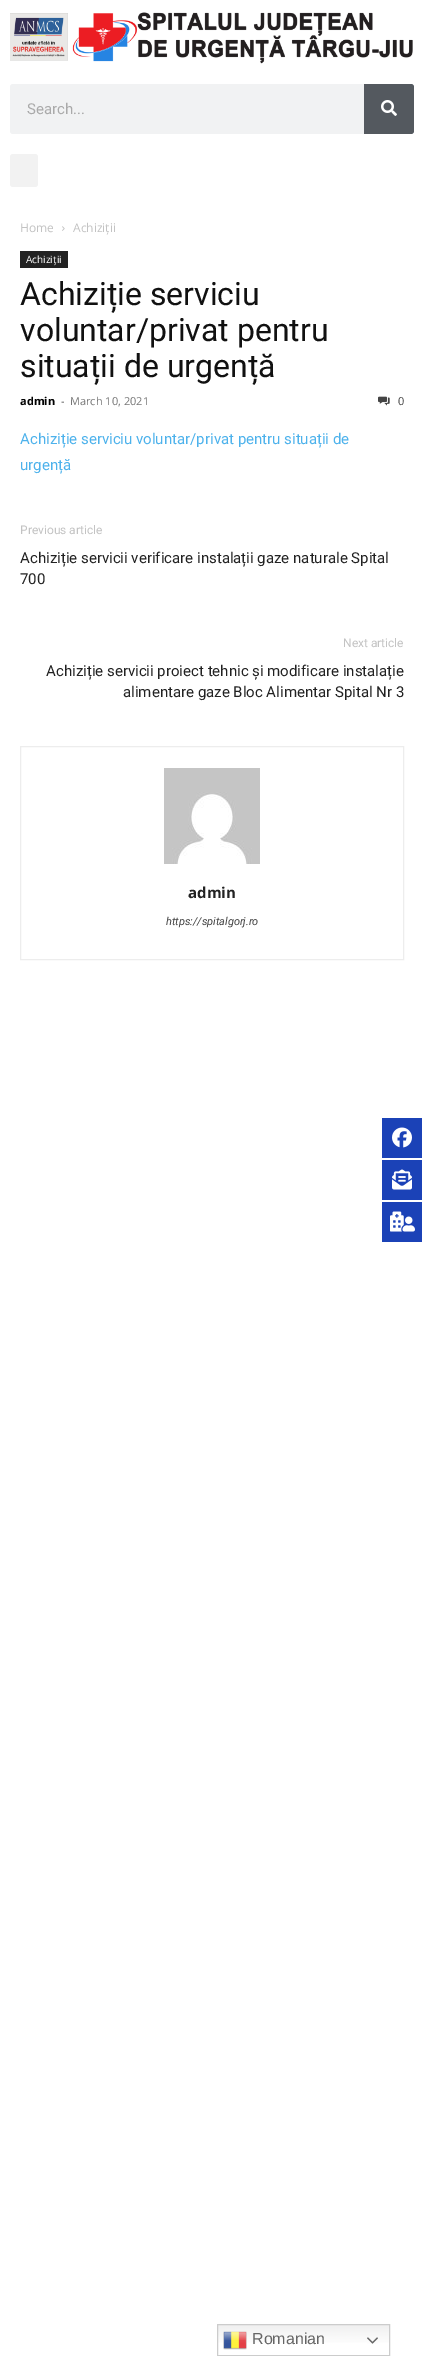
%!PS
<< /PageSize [424 2356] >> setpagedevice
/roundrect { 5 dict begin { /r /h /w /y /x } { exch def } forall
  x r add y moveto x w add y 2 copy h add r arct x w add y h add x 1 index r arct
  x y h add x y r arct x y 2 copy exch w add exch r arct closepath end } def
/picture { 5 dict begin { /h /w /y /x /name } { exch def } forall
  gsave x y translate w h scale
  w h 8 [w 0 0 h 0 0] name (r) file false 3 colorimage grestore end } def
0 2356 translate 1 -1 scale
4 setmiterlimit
1 setgray
0 0 424 2356 rectfill
(img1.rgb) 10 12 403 52 picture
0.945 0.949 0.953 setrgbcolor
10 84 404 50 3 roundrect fill
/Roboto-Regular [15 0 0 -15 0 0] selectfont
0.667 setgray
27 114 moveto (Search...) show
0.329 0.349 0.373 setrgbcolor
newpath 364 84 moveto 411 84 lineto 412.5 84 414 85.5 414 87 curveto 414 131 lineto 414 132.5 412.5 134 411 134 curveto 364 134 lineto closepath fill
(img2.rgb) 381 100 16 16 picture
0.949 setgray
10 154 28 33 3 roundrect fill
/OpenSans-Regular [12 0 0 -12 0 0] selectfont
0.765 setgray
20 232 moveto (Home) show
(img3.rgb) 62 226 3 5 picture
73 232 moveto (Achiziții) show
0.133 setgray
20 251 48 17 rectfill
/OpenSans-Regular [10 0 0 -10 0 0] selectfont
1 setgray
26 263 moveto (Achiziții) show
/Roboto-Regular [32 0 0 -32 0 0] selectfont
0.067 setgray
20 305 moveto (Achiziție serviciu) show
20 341 moveto (voluntar/privat pentru) show
20 377 moveto (situații de urgență) show
/OpenSans-Bold [11 0 0 -11 0 0] selectfont
0 setgray
20 405 moveto (admin) show
/OpenSans-Regular [11 0 0 -11 0 0] selectfont
0.267 setgray
61 405 moveto (-) show
0.463 setgray
70 405 moveto (March 10, 2021) show
(img4.rgb) 378 396 12 10 picture
0.267 setgray
398 405 moveto (0) show
/Roboto-Regular [15 0 0 -15 0 0] selectfont
0.302 0.698 0.925 setrgbcolor
20 444 moveto (Achiziție serviciu voluntar/privat pentru situații de) show
20 470 moveto (urgență) show
/Roboto-Regular [12 0 0 -12 0 0] selectfont
0.765 setgray
20 534 moveto (Previous article) show
/Roboto-Regular [15 0 0 -15 0 0] selectfont
0.133 setgray
20 563 moveto (Achiziție servicii verificare instalații gaze naturale Spital) show
20 584 moveto (700) show
/Roboto-Regular [12 0 0 -12 0 0] selectfont
0.765 setgray
343 647 moveto (Next article) show
/Roboto-Regular [15 0 0 -15 0 0] selectfont
0.133 setgray
46 676 moveto (Achiziție servicii proiect tehnic și modificare instalație) show
123 697 moveto (alimentare gaze Bloc Alimentar Spital Nr 3) show
0.929 setgray
20.5 746.5 383 213 rectstroke
(img5.rgb) 164 768 96 96 picture
/OpenSans-Bold [15 0 0 -15 0 0] selectfont
0.133 setgray
188 898 moveto (admin) show
/Roboto-Italic [11 0 0 -11 0 0] selectfont
0.267 setgray
166 925 moveto (https://spitalgorj.ro) show
0.106 0.259 0.718 setrgbcolor
382 1118 40 40 rectfill
(img6.rgb) 392 1127 20 21 picture
382 1160 40 40 rectfill
(img7.rgb) 392 1169 20 21 picture
382 1202 40 40 rectfill
(img8.rgb) 390 1211 25 21 picture
gsave newpath 218 2325 moveto 389 2325 lineto 389 2343 lineto 218 2343 lineto closepath clip newpath
<< /ShadingType 2 /ColorSpace /DeviceRGB /Coords [304 2324 304 2356] /Extend [true true] /Function << /FunctionType 3 /Domain [0 1] /Functions [<< /FunctionType 2 /Domain [0 1] /C0 [0.937 0.937 0.937] /C1 [1 1 1] /N 1 >> << /FunctionType 2 /Domain [0 1] /C0 [1 1 1] /C1 [1 1 1] /N 1 >>] /Bounds [0.7] /Encode [0 1 0 1] >> >> shfill grestore
0.8 setgray
217.5 2324.5 172 31 rectstroke
(img9.rgb) 223 2331 24 19 picture
/LiberationSans-Regular [16 0 0 -16 0 0] selectfont
0.4 setgray
252 2344 moveto (Romanian) show
(img10.rgb) 367 2337 11 7 picture
showpage
